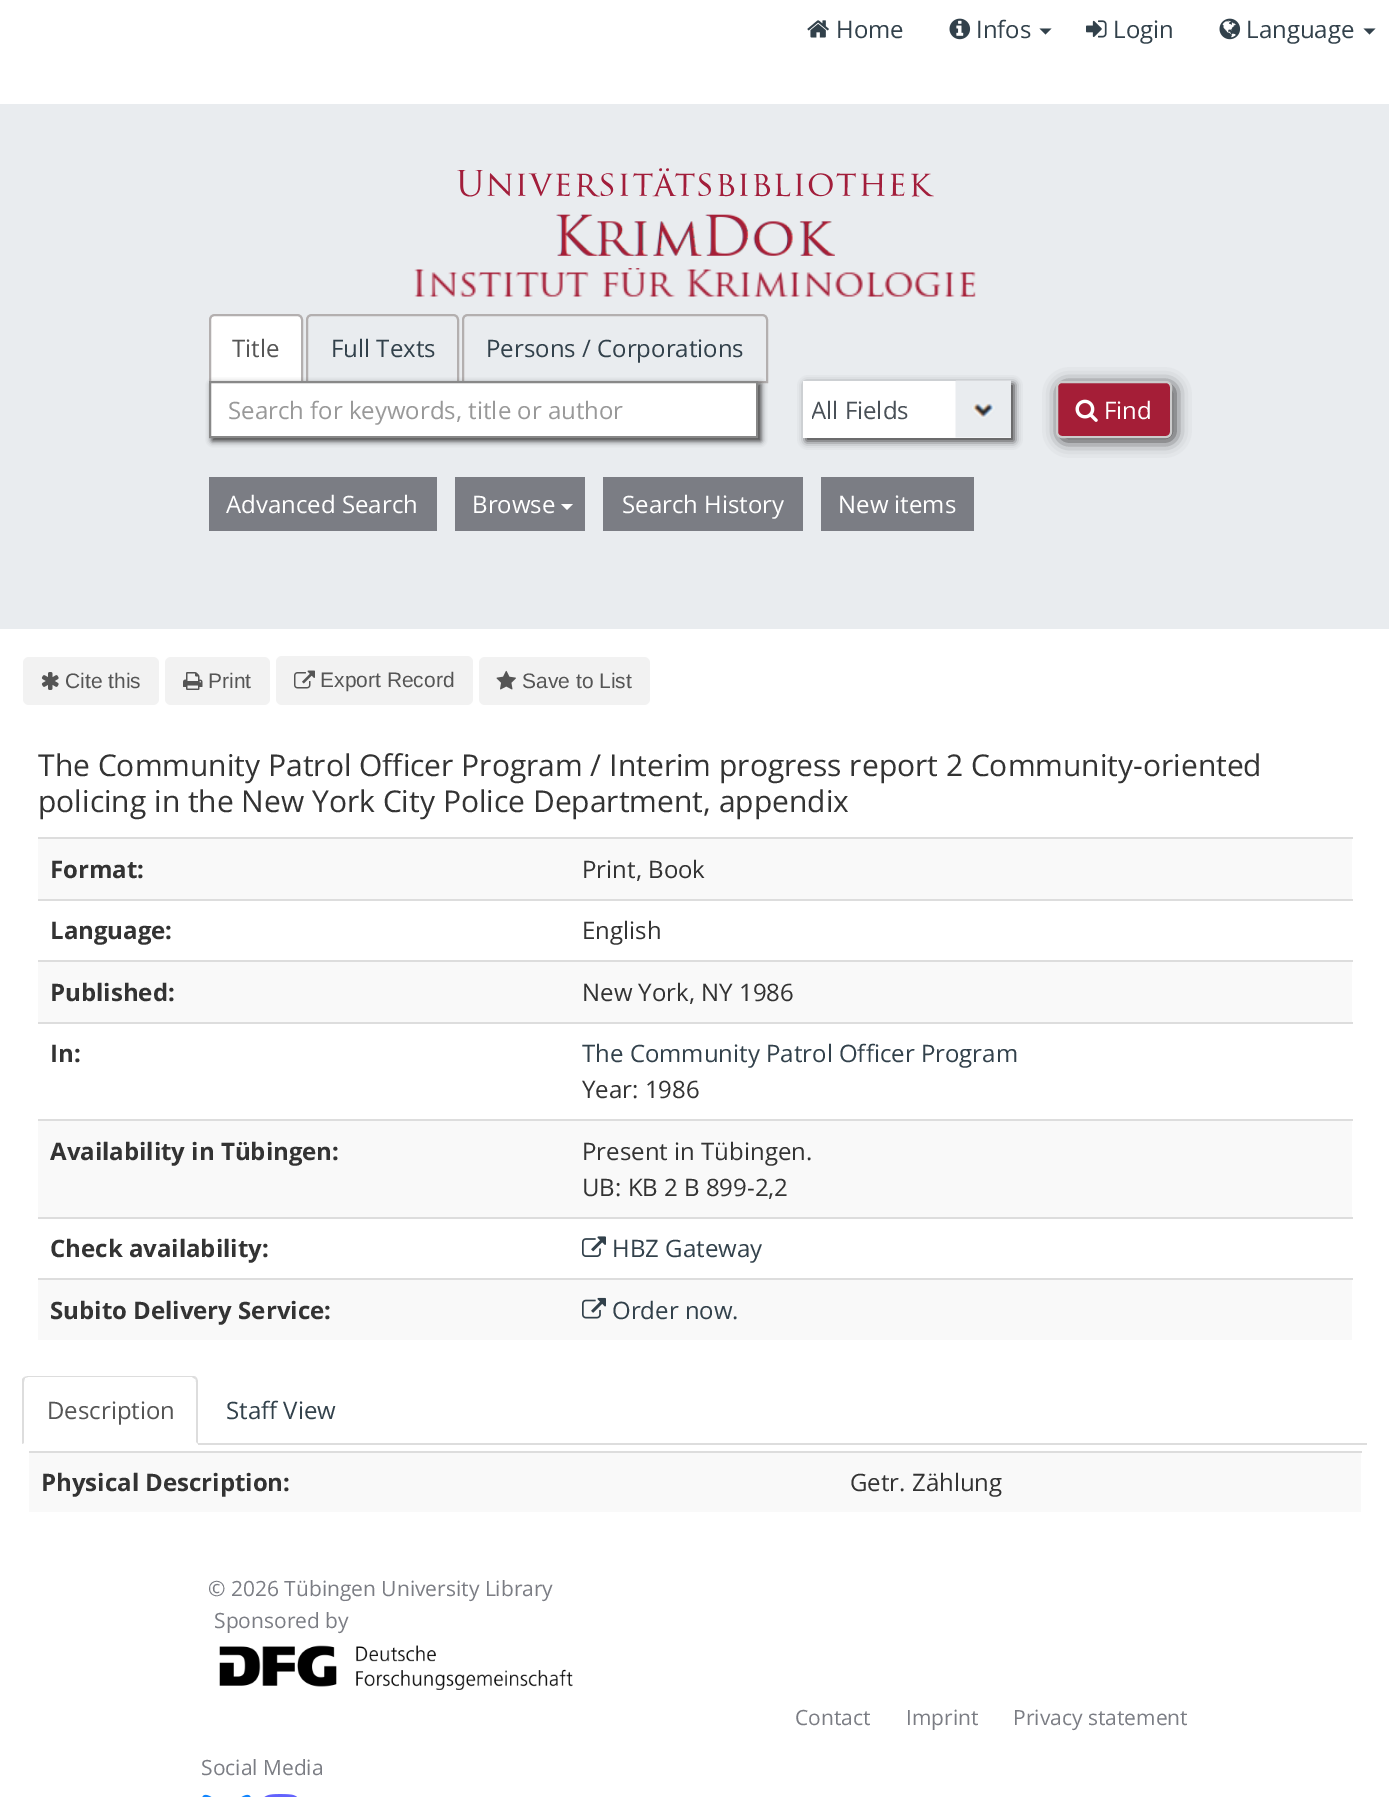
%!PS
<< /PageSize [1389 1797] /PageUsesTransparency true >> setpagedevice
/alpha { dup .setfillconstantalpha .setstrokeconstantalpha } def
/roundrect { 5 dict begin { /r /h /w /y /x } { exch def } forall
  x r add y moveto x w add y 2 copy h add r arct x w add y h add x 1 index r arct
  x y h add x y r arct x y 2 copy exch w add exch r arct closepath end } def
/shadow { 12 dict begin { /a /b /q /h /w /y /x } { exch def } forall gsave /was 0 def
  9 -2 -9 { dup b mul 4 div /e exch def 1 sub .425 mul 2.718 exch exp 1 add a .99 .min exch div /now exch def
    1 1 now sub 1 was sub div sub alpha /was now def
    w h .min e 2 mul add 0 gt { x e sub y e sub w e 2 mul add h e 2 mul add
      q e add b .6 mul add w h .min 2 div e add .min 0 .max roundrect fill } if } for grestore end } def
/picture { 5 dict begin { /h /w /y /x /name } { exch def } forall
  gsave x y translate w h scale
  w h 8 [w 0 0 h 0 0] name (r) file false 3 colorimage grestore end } def
0 .pushpdf14devicefilter
0 1797 translate 1 -1 scale
4 setmiterlimit
1 setgray
0 0 1389 1797 rectfill
(img1.rgb) 807 20 22 18 picture
/OpenSans-Regular [24 0 0 -24 0 0] selectfont
0.196 0.255 0.294 setrgbcolor
836 38 moveto (Home) show
(img2.rgb) 949 18 22 22 picture
976 38 moveto (Infos) show
newpath 1039.5 28.5 moveto 1051.5 28.5 lineto 1045.5 34.5 lineto closepath fill
(img3.rgb) 1086 20 21 18 picture
1113 38 moveto (Login) show
(img4.rgb) 1219 18 22 22 picture
1246 38 moveto (Language) show
newpath 1363.5 28.5 moveto 1375.5 28.5 lineto 1369.5 34.5 lineto closepath fill
0.914 0.925 0.937 setrgbcolor
0 104 1389 525 rectfill
(img5.rgb) 457 168 477 29 picture
(img6.rgb) 556 214 279 42 picture
(img7.rgb) 414 268 562 29 picture
1 setgray
newpath 215 315 moveto 297 315 lineto 300 315 302 317 302 320 curveto 302 382 lineto 210 382 lineto 210 320 lineto 210 317 212 315 215 315 curveto closepath gsave fill grestore
0.702 0.686 0.686 setrgbcolor
2 setlinewidth
stroke
0.333 setgray
232 357 moveto (Title) show
0.702 0.686 0.686 setrgbcolor
newpath 312 315 moveto 453 315 lineto 456 315 458 317 458 320 curveto 458 382 lineto 307 382 lineto 307 320 lineto 307 317 309 315 312 315 curveto closepath stroke
0.196 0.255 0.294 setrgbcolor
331 357 moveto (Full Texts) show
0.702 0.686 0.686 setrgbcolor
newpath 468 315 moveto 762 315 lineto 765 315 767 317 767 320 curveto 767 382 lineto 463 382 lineto 463 320 lineto 463 317 465 315 468 315 curveto closepath stroke
0.196 0.255 0.294 setrgbcolor
486 357 moveto (Persons / Corporations) show
0.196 setgray
212 384 549 57 0 3 1 shadow
1 setgray
newpath 210 382 moveto 757 382 lineto 757 437 lineto 210 437 lineto closepath gsave fill grestore
0.533 setgray
stroke
0.6 setgray
228 419 moveto (Search for keywords, title or author) show
0.196 setgray
806 384 208 57 0 4 1 shadow
1 setgray
803 381 208 57 rectfill
(img8.rgb) 955 380 56 58 picture
gsave
812 392 142 36 rectclip
0.286 0.314 0.341 setrgbcolor
811 419 moveto (All Fields) show
grestore
0.196 setgray
1059 384 116 57 6 7.5 1 shadow
0.647 0.118 0.216 setrgbcolor
1057 382 114 55 5 roundrect gsave fill grestore
0.8 setgray
stroke
(img9.rgb) 1075 399 23 23 picture
1 setgray
1104 419 moveto (Find) show
0.482 0.49 0.518 setrgbcolor
209 477 228 54 rectfill
1 setgray
226 513 moveto (Advanced Search) show
0.482 0.49 0.518 setrgbcolor
455 477 130 54 rectfill
1 setgray
472 513 moveto (Browse) show
newpath 561 504 moveto 573 504 lineto 567 510 lineto closepath fill
0.482 0.49 0.518 setrgbcolor
603 477 200 54 rectfill
1 setgray
622 513 moveto (Search History) show
0.482 0.49 0.518 setrgbcolor
821 477 153 54 rectfill
1 setgray
838 513 moveto (New items) show
0.949 setgray
23 657 136 48 6 roundrect fill
(img10.rgb) 41 672 18 18 picture
/LiberationSans-Regular [21 0 0 -21 0 0] selectfont
0.333 setgray
65 688 moveto (Cite this) show
0.949 setgray
165 657 105 48 6 roundrect fill
(img11.rgb) 183 672 20 18 picture
0.333 setgray
208 688 moveto (Print) show
0.949 setgray
276 656 197 49 6 roundrect fill
(img12.rgb) 294 670 21 19 picture
0.333 setgray
320 687 moveto (Export Record) show
0.949 setgray
479 657 171 48 6 roundrect fill
(img13.rgb) 496 670 20 20 picture
0.333 setgray
522 688 moveto (Save to List) show
/OpenSans-Regular [30 0 0 -30 0 0] selectfont
0.2 setgray
38 776 moveto (The Community Patrol Officer Program / Interim progress report 2 Community-oriented) show
38 812 moveto (policing in the New York City Police Department, appendix) show
0.976 setgray
38 839 1314 60 rectfill
/OpenSans-Bold [24 0 0 -24 0 0] selectfont
0.2 setgray
50 878 moveto (Format:) show
0.867 setgray
38 837 1315 2 rectfill
/OpenSans-Regular [24 0 0 -24 0 0] selectfont
0.2 setgray
582 878 moveto (Print, Book) show
/OpenSans-Bold [24 0 0 -24 0 0] selectfont
50 939 moveto (Language:) show
0.867 setgray
38 899 1315 2 rectfill
/OpenSans-Regular [24 0 0 -24 0 0] selectfont
0.2 setgray
582 939 moveto (English) show
0.976 setgray
38 962 1314 60 rectfill
/OpenSans-Bold [24 0 0 -24 0 0] selectfont
0.2 setgray
50 1001 moveto (Published:) show
0.867 setgray
38 960 1315 2 rectfill
/OpenSans-Regular [24 0 0 -24 0 0] selectfont
0.2 setgray
582 1001 moveto (New York, NY 1986) show
/OpenSans-Bold [24 0 0 -24 0 0] selectfont
50 1062 moveto (In:) show
0.867 setgray
38 1022 1315 2 rectfill
/OpenSans-Regular [24 0 0 -24 0 0] selectfont
0.196 0.255 0.294 setrgbcolor
582 1062 moveto (The Community Patrol Officer Program) show
0.2 setgray
582 1098 moveto (Year: 1986) show
0.976 setgray
38 1121 1314 96 rectfill
/OpenSans-Bold [24 0 0 -24 0 0] selectfont
0.2 setgray
50 1160 moveto (Availability in Tübingen:) show
0.867 setgray
38 1119 1315 2 rectfill
/OpenSans-Regular [24 0 0 -24 0 0] selectfont
0.2 setgray
582 1160 moveto (Present in Tübingen.) show
582 1196 moveto (UB: KB 2 B 899-2,2) show
/OpenSans-Bold [24 0 0 -24 0 0] selectfont
50 1257 moveto (Check availability:) show
0.867 setgray
38 1217 1315 2 rectfill
(img14.rgb) 582 1236 24 21 picture
/OpenSans-Regular [24 0 0 -24 0 0] selectfont
0.196 0.255 0.294 setrgbcolor
612 1257 moveto (HBZ Gateway) show
0.976 setgray
38 1280 1314 60 rectfill
/OpenSans-Bold [24 0 0 -24 0 0] selectfont
0.2 setgray
50 1319 moveto (Subito Delivery Service:) show
0.867 setgray
38 1278 1315 2 rectfill
(img15.rgb) 582 1297 24 22 picture
/OpenSans-Regular [24 0 0 -24 0 0] selectfont
0.196 0.255 0.294 setrgbcolor
612 1319 moveto (Order now.) show
0.867 setgray
198 1443 1169 2 rectfill
newpath 28 1376 moveto 24 1377 lineto 25 1378 lineto 28 1377 lineto 192 1377 lineto 195 1379 lineto 196 1377 lineto 195 1376 193 1376 192 1376 curveto closepath fill
newpath 196 1377 moveto 197 1378 198 1380 198 1382 curveto 198 1444 lineto 196 1442 lineto 196 1382 lineto 196 1381 196 1379 195 1379 curveto closepath fill
newpath 22 1379 moveto 24 1377 lineto 25 1378 lineto 25 1379 24 1380 24 1382 curveto 24 1443 lineto 22 1444 lineto closepath fill
0.333 setgray
47 1419 moveto (Description) show
0.196 0.255 0.294 setrgbcolor
226 1419 moveto (Staff View) show
0.976 setgray
29 1453 1332 59 rectfill
/OpenSans-Bold [24 0 0 -24 0 0] selectfont
0.2 setgray
41 1491 moveto (Physical Description:) show
0.867 setgray
29 1451 1333 2 rectfill
/OpenSans-Regular [24 0 0 -24 0 0] selectfont
0.2 setgray
850 1491 moveto (Getr. Zählung) show
/OpenSans-Regular [21 0 0 -21 0 0] selectfont
0.482 0.49 0.518 setrgbcolor
208 1596 moveto (© 2026 Tübingen University Library) show
214 1628 moveto (Sponsored by) show
(img16.rgb) 219 1645 354 45 picture
795 1725 moveto (Contact) show
906 1725 moveto (Imprint) show
1013 1725 moveto (Privacy statement) show
201 1775 moveto (Social Media) show
(img17.rgb) 202 1794 49 3 picture
(img18.rgb) 264 1794 33 3 picture
.poppdf14devicefilter showpage
